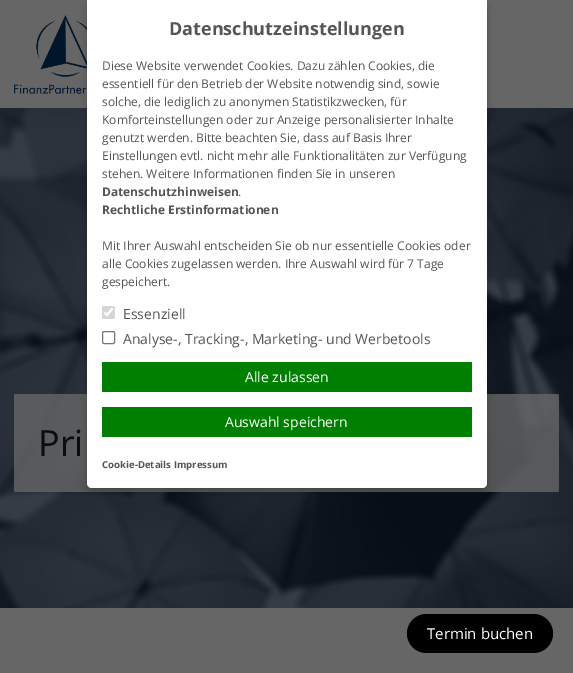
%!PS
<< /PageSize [573 673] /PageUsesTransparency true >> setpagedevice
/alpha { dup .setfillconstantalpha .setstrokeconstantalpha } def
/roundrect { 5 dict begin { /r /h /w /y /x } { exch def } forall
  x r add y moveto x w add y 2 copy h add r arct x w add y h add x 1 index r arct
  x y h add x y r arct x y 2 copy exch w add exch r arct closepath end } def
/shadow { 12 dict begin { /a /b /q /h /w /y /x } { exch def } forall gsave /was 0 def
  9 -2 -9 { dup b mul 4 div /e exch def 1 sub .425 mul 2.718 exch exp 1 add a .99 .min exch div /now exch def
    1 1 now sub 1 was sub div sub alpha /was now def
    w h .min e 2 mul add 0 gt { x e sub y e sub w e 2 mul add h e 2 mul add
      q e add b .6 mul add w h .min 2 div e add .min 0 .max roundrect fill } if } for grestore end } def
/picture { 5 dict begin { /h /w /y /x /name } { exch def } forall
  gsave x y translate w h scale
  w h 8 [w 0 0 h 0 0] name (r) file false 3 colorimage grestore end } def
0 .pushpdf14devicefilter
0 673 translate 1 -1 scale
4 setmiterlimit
0.4 setgray
0 0 573 673 rectfill
(img1.rgb) 14 15 73 79 picture
(img2.rgb) 0 108 573 500 picture
0.8 alpha
14 394 545 98 2 roundrect fill
/OpenSans-Regular [36 0 0 -36 0 0] selectfont
1 alpha
0.047 setgray
38 456 moveto (Pri) show
0 setgray
87 4 400 488 5 4 0.2 shadow
1 setgray
newpath 87 0 moveto 487 0 lineto 487 483 lineto 487 486 485 488 482 488 curveto 92 488 lineto 89 488 87 486 87 483 curveto closepath fill
/OpenSans-Bold [18 0 0 -18 0 0] selectfont
0.333 setgray
169 35 moveto (Datenschutzeinstellungen) show
/OpenSans-Regular [12 0 0 -12 0 0] selectfont
102 70 moveto (Diese Website verwendet Cookies. Dazu zählen Cookies, die) show
102 88 moveto (essentiell für den Betrieb der Website notwendig sind, sowie) show
102 106 moveto (solche, die lediglich zu anonymen Statistikzwecken, für) show
102 124 moveto (Komforteinstellungen oder zur Anzeige personalisierter Inhalte) show
102 142 moveto (genutzt werden. Bitte beachten Sie, dass auf Basis Ihrer) show
102 160 moveto (Einstellungen evtl. nicht mehr alle Funktionalitäten zur Verfügung) show
102 178 moveto (stehen. Weitere Informationen finden Sie in unseren) show
/OpenSans-Bold [12 0 0 -12 0 0] selectfont
102 196 moveto (Datenschutzhinweisen) show
/OpenSans-Regular [12 0 0 -12 0 0] selectfont
238 196 moveto (.) show
/OpenSans-Bold [12 0 0 -12 0 0] selectfont
102 214 moveto (Rechtliche Erstinformationen) show
/OpenSans-Regular [12 0 0 -12 0 0] selectfont
102 250 moveto (Mit Ihrer Auswahl entscheiden Sie ob nur essentielle Cookies oder) show
102 268 moveto (alle Cookies zugelassen werden. Ihre Auswahl wird für 7 Tage) show
102 286 moveto (gespeichert.) show
0.839 setgray
102 306 13 13 2 roundrect fill
1 setgray
2.1 setlinewidth
newpath 104.5 312.5 moveto 107 315 lineto 112.5 308.5 lineto stroke
/OpenSans-Regular [14 0 0 -14 0 0] selectfont
0.333 setgray
123 319 moveto (Essenziell) show
0.463 setgray
1 setlinewidth
102.5 331.5 12 12 1.5 roundrect stroke
0.333 setgray
123 344 moveto (Analyse-, Tracking-, Marketing- und Werbetools) show
0 0.502 0 setrgbcolor
102 362 370 30 rectfill
1 setgray
245 382 moveto (Alle zulassen) show
0 0.502 0 setrgbcolor
102 407 370 30 rectfill
1 setgray
225 427 moveto (Auswahl speichern) show
/OpenSans-Bold [9.6 0 0 -9.6 0 0] selectfont
0.333 setgray
102 468 moveto (Cookie-Details Impressum) show
0 setgray
407 614 146 39 19.5 roundrect fill
/OpenSans-Regular [15 0 0 -15 0 0] selectfont
1 setgray
427 639 moveto (Termin buchen) show
.poppdf14devicefilter showpage
